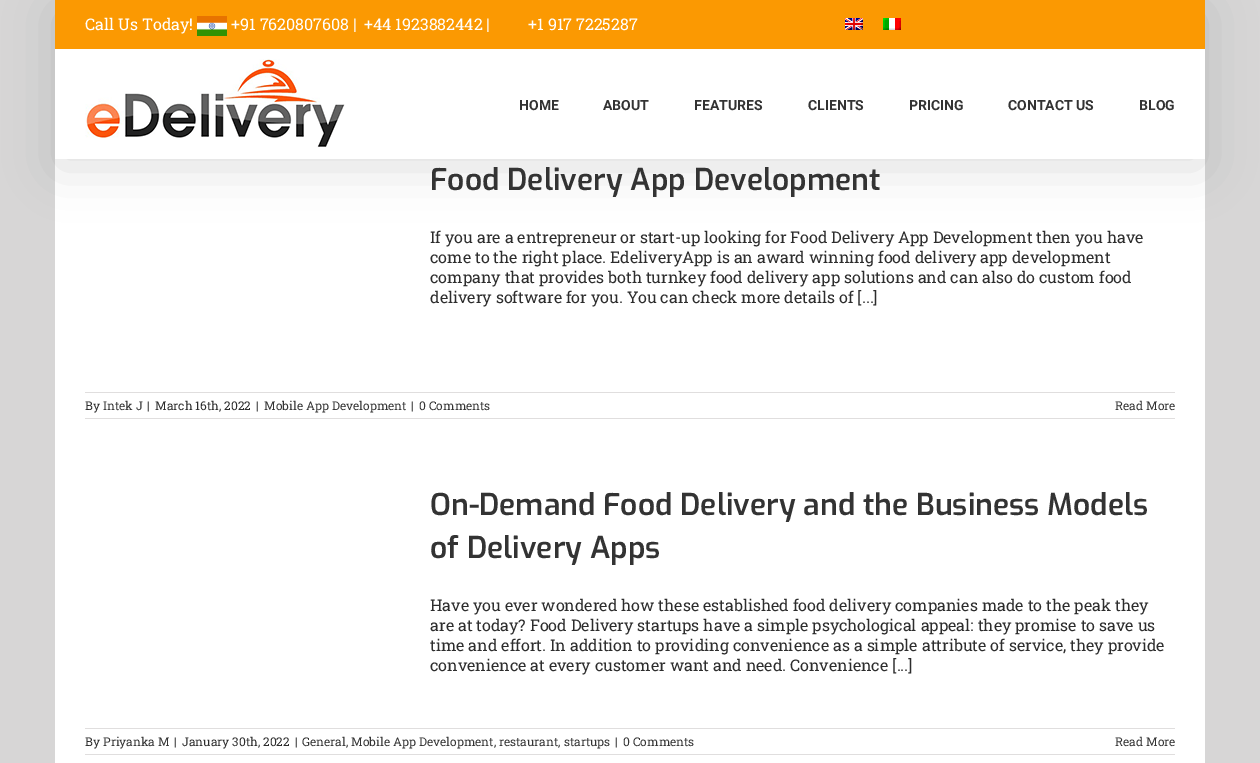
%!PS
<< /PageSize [1260 763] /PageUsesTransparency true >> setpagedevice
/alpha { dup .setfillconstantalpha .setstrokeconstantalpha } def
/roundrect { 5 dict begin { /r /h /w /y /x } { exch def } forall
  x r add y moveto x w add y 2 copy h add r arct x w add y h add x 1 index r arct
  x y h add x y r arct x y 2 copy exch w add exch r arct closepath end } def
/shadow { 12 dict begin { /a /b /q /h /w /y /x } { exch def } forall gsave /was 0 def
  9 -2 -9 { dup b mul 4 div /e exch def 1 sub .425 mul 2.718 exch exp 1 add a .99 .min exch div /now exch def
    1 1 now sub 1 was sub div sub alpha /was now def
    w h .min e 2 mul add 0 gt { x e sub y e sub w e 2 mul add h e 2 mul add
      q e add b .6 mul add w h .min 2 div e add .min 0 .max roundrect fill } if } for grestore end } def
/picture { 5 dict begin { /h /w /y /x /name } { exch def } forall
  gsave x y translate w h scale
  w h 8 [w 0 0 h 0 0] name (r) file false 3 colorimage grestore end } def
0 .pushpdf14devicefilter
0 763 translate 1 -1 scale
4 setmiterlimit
0.843 0.839 0.839 setrgbcolor
0 0 1260 763 rectfill
1 setgray
55 159 1150 604 rectfill
0 setgray
57 12 1146 155 0 25 0.14 shadow
0.984 0.6 0.008 setrgbcolor
55 0 1150 49 rectfill
/RobotoSlab-Regular [16 0 0 -16 0 0] selectfont
1 setgray
85 30 moveto (Call Us Today!) show
(img1.rgb) 197 16 30 20 picture
231 30 moveto (+91 7620807608 |) show
364 30 moveto (+44 1923882442 |) show
528 30 moveto (+1 917 7225287) show
(img2.rgb) 845 18 18 12 picture
(img3.rgb) 883 18 18 12 picture
55 49 1150 110 rectfill
(img4.rgb) 85 59 260 89 picture
/Roboto-Bold [14 0 0 -14 0 0] selectfont
0.2 setgray
519 110 moveto (HOME) show
603 110 moveto (ABOUT) show
694 110 moveto (FEATURES) show
808 110 moveto (CLIENTS) show
909 110 moveto (PRICING) show
1008 110 moveto (CONTACT US) show
1139 110 moveto (BLOG) show
/Exo-SemiBold [30 0 0 -30 0 0] selectfont
430 190 moveto (Food Delivery App Development) show
/RobotoSlab-Regular [16 0 0 -16 0 0] selectfont
0.176 setgray
430 243 moveto (If you are a entrepreneur or start-up looking for Food Delivery App Development then you have) show
430 263 moveto (come to the right place. EdeliveryApp is an award winning food delivery app development) show
430 283 moveto (company that provides both turnkey food delivery app solutions and can also do custom food) show
430 303 moveto (delivery software for you. You can check more details of [...]) show
0.878 0.871 0.871 setrgbcolor
85 392 1090 1 rectfill
85 418 1090 1 rectfill
/RobotoSlab-Regular [12 0 0 -12 0 0] selectfont
0.176 setgray
85 410 moveto (By) show
0.2 setgray
103 410 moveto (Intek J) show
0.176 setgray
147 410 moveto (|) show
155 410 moveto (March 16th, 2022) show
256 410 moveto (|) show
0.2 setgray
264 410 moveto (Mobile App Development) show
0.176 setgray
411 410 moveto (|) show
0.2 setgray
419 410 moveto (0 Comments) show
1115 410 moveto (Read More) show
/Exo-SemiBold [30 0 0 -30 0 0] selectfont
430 515 moveto (On-Demand Food Delivery and the Business Models) show
430 558 moveto (of Delivery Apps) show
/RobotoSlab-Regular [16 0 0 -16 0 0] selectfont
0.176 setgray
430 611 moveto (Have you ever wondered how these established food delivery companies made to the peak they) show
430 631 moveto (are at today? Food Delivery startups have a simple psychological appeal: they promise to save us) show
430 651 moveto (time and effort. In addition to providing convenience as a simple attribute of service, they provide) show
430 671 moveto (convenience at every customer want and need. Convenience [...]) show
0.878 0.871 0.871 setrgbcolor
85 728 1090 1 rectfill
85 754 1090 1 rectfill
/RobotoSlab-Regular [12 0 0 -12 0 0] selectfont
0.176 setgray
85 746 moveto (By) show
0.2 setgray
103 746 moveto (Priyanka M) show
0.176 setgray
174 746 moveto (|) show
182 746 moveto (January 30th, 2022) show
295 746 moveto (|) show
0.2 setgray
302 746 moveto (General) show
0.176 setgray
346 746 moveto (,) show
0.2 setgray
351 746 moveto (Mobile App Development) show
0.176 setgray
494 746 moveto (,) show
0.2 setgray
499 746 moveto (restaurant) show
0.176 setgray
558 746 moveto (,) show
0.2 setgray
564 746 moveto (startups) show
0.176 setgray
615 746 moveto (|) show
0.2 setgray
623 746 moveto (0 Comments) show
1115 746 moveto (Read More) show
.poppdf14devicefilter showpage
